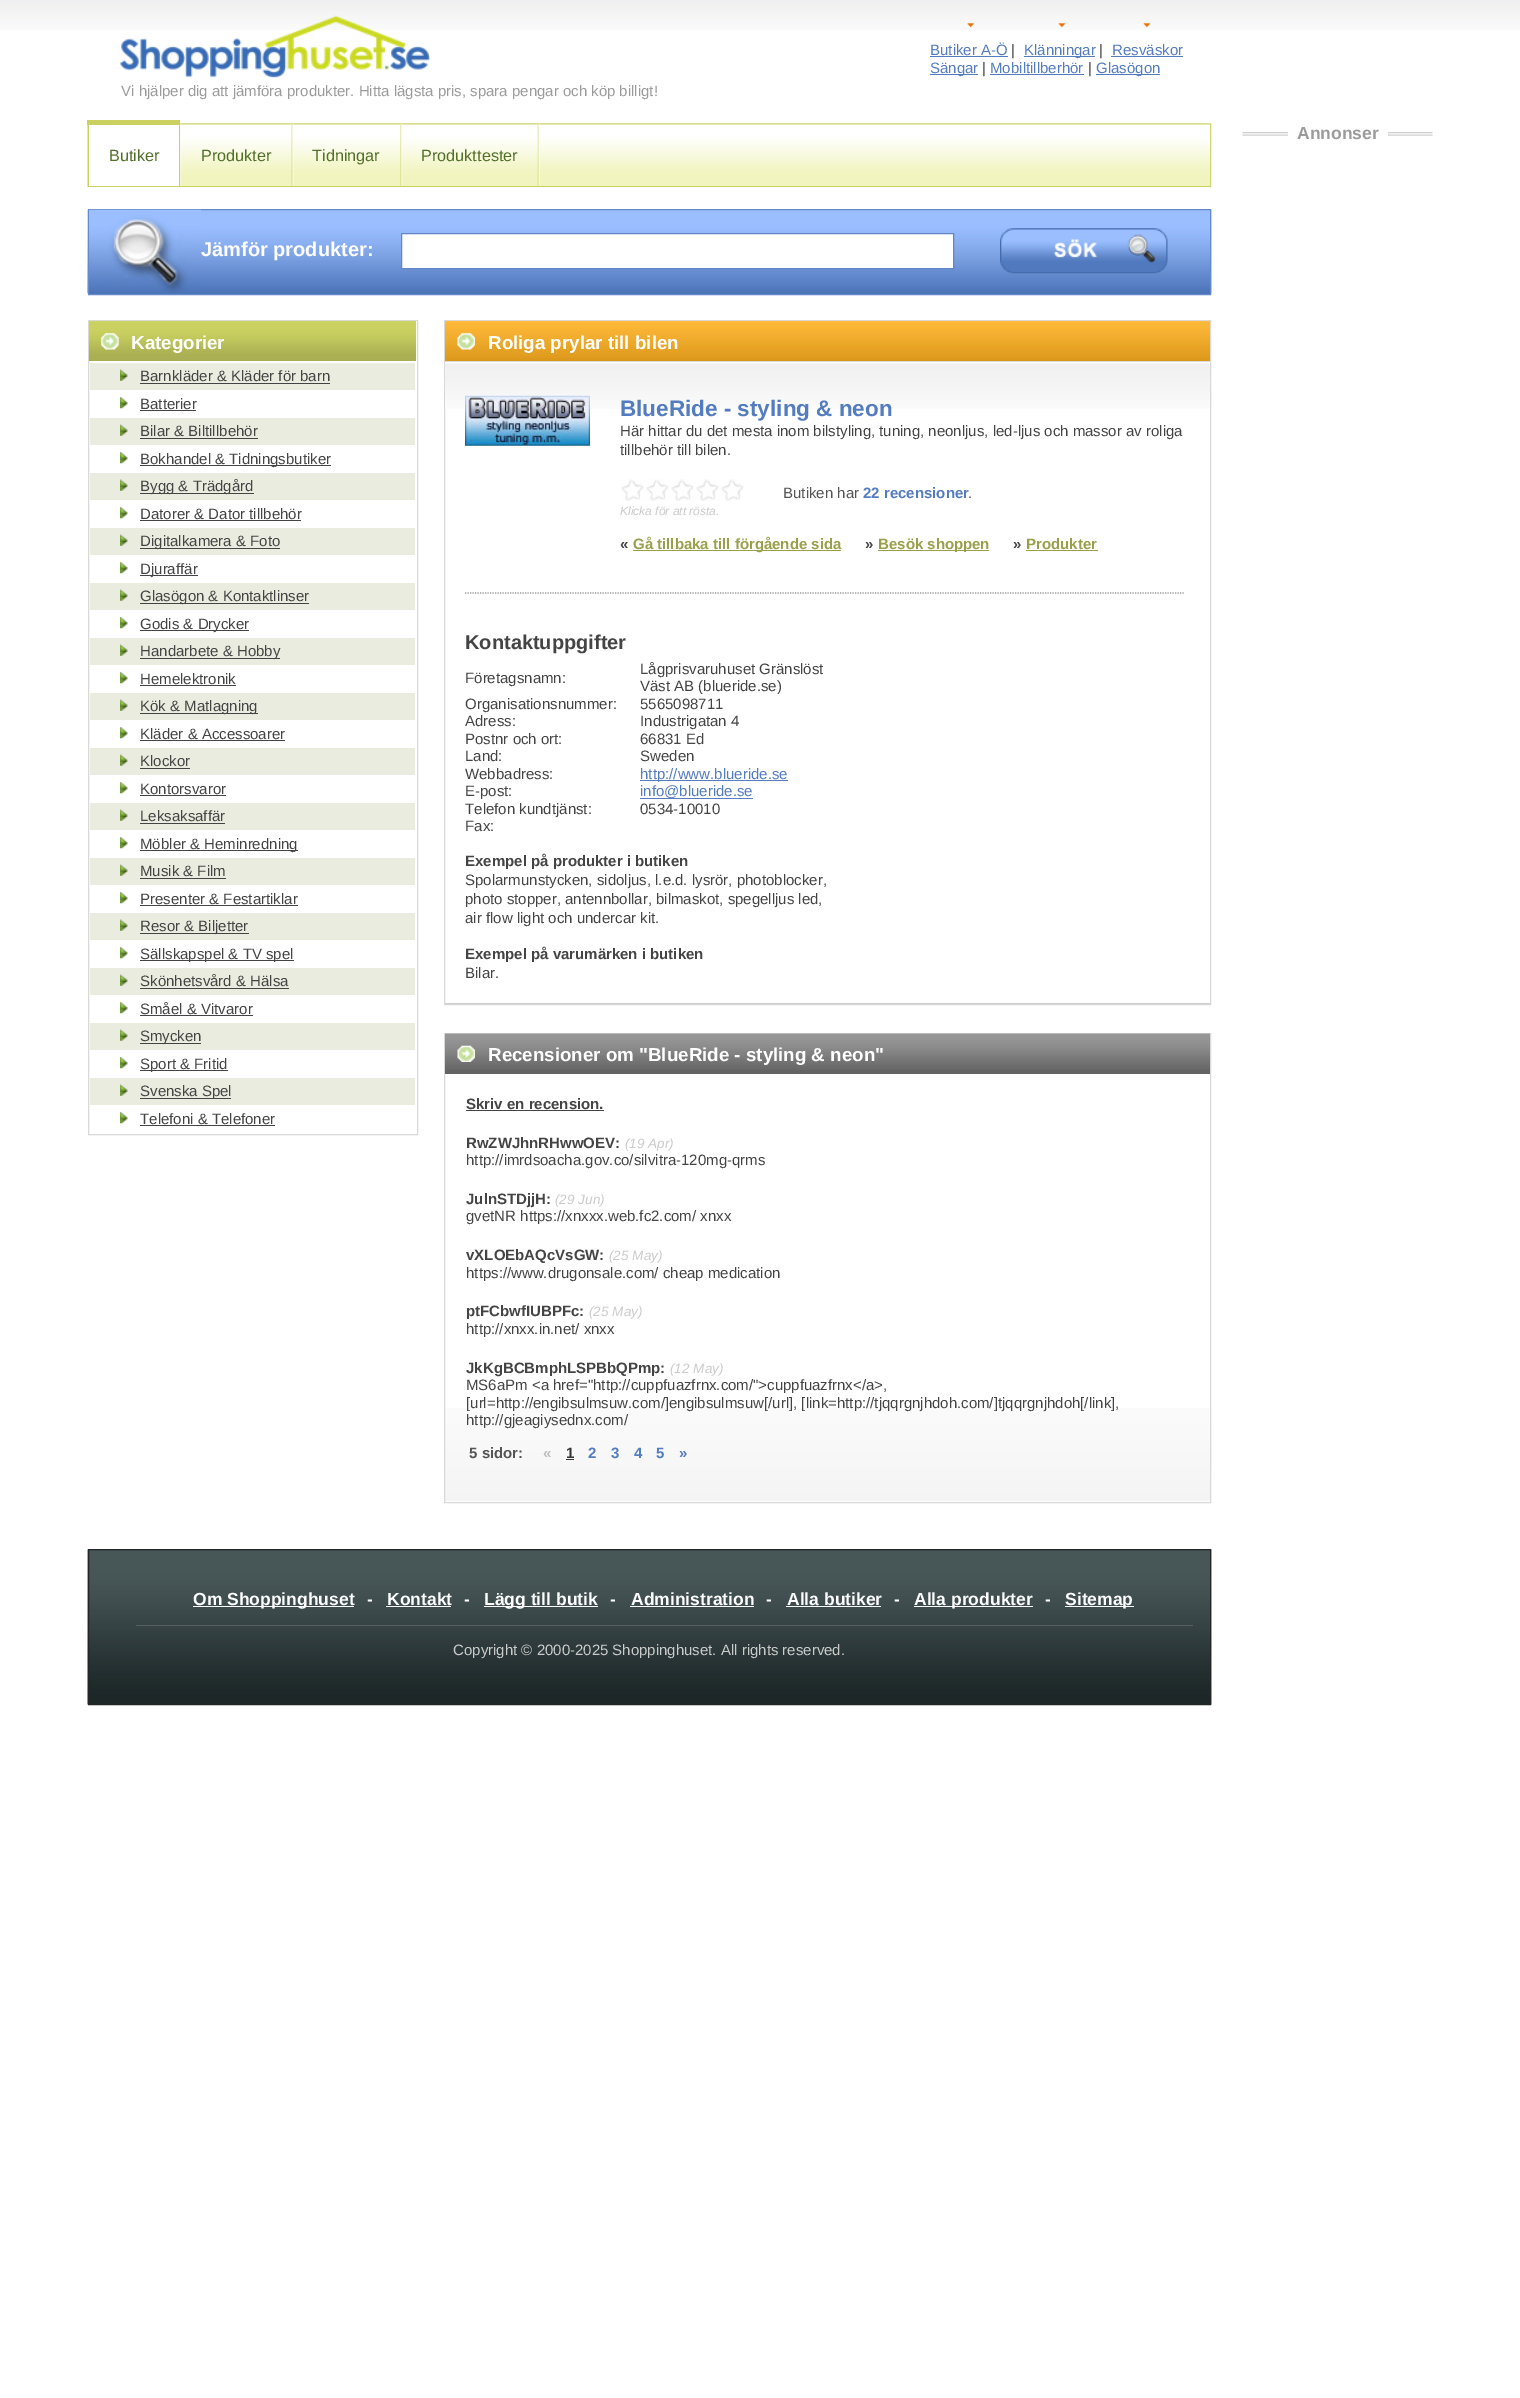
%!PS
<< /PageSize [1520 2398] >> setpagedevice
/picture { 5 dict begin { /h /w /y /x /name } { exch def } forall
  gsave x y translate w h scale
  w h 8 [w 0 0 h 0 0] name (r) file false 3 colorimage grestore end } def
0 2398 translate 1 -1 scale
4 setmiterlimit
1 setgray
0 0 1520 2398 rectfill
(img1.rgb) 0 0 1520 30 picture
(img2.rgb) 119 15 311 63 picture
(img3.rgb) 967 23 184 5 picture
/LiberationSans-Regular [15 0 0 -15 0 0] selectfont
0.329 0.486 0.753 setrgbcolor
930 55 moveto (Butiker A-Ö) show
930 56 78 1 rectfill
0.267 setgray
1011 55 moveto (|) show
0.329 0.486 0.753 setrgbcolor
1024 56 71 1 rectfill
1024 55 moveto (Klänningar) show
0.267 setgray
1099 55 moveto (|) show
0.329 0.486 0.753 setrgbcolor
1112 55 moveto (Resväskor) show
1111 56 72 1 rectfill
930 74 48 1 rectfill
930 73 moveto (Sängar) show
0.267 setgray
982 73 moveto (|) show
0.329 0.486 0.753 setrgbcolor
990 73 moveto (Mobiltillberhör) show
990 74 94 1 rectfill
0.267 setgray
1088 73 moveto (|) show
0.329 0.486 0.753 setrgbcolor
1096 74 64 1 rectfill
1096 73 moveto (Glasögon) show
0.608 setgray
121 96 moveto (Vi hjälper dig att jämföra produkter. Hitta lägsta pris, spara pengar och köp billigt!) show
(img4.rgb) 87 123 1125 64 picture
0.792 0.82 0.376 setrgbcolor
88 186 1123 1 rectfill
0.945 0.957 0.745 setrgbcolor
180 185 1030 1 rectfill
(img5.rgb) 180 121 1030 65 picture
(img6.rgb) 180 124 2 62 picture
0.792 0.82 0.376 setrgbcolor
87 120 93 5 rectfill
179 121 1 65 rectfill
88 121 1 65 rectfill
/LiberationSans-Regular [16.25 0 0 -16.25 0 0] selectfont
0.322 0.439 0.161 setrgbcolor
109 161 moveto (Butiker) show
(img7.rgb) 291 124 3 62 picture
201 161 moveto (Produkter) show
(img8.rgb) 400 124 3 62 picture
312 161 moveto (Tidningar) show
(img9.rgb) 537 124 3 62 picture
421 161 moveto (Produkttester) show
0.298 0.459 0.725 setrgbcolor
89 293 1121 1 rectfill
(img10.rgb) 87 209 1125 85 picture
0.392 0.541 0.796 setrgbcolor
88.5 209.5 1122 85 rectstroke
(img11.rgb) 89 209 112 84 picture
/LiberationSans-Bold [20 0 0 -20 0 0] selectfont
1 setgray
201 256 moveto (Jämför produkter:) show
newpath 401.5 233.5 moveto 953.5 233.5 lineto 953.5 268.5 lineto 401.5 268.5 lineto closepath gsave fill grestore
0.384 0.525 0.78 setrgbcolor
stroke
(img12.rgb) 1000 228 168 46 picture
(img13.rgb) 1242 132 191 4 picture
1 setgray
1288 132 100 4 rectfill
/LiberationSans-Bold [17.5 0 0 -17.5 0 0] selectfont
0.608 setgray
1297 139 moveto (Annonser) show
0.851 setgray
88.5 320.5 329 814 rectstroke
(img14.rgb) 88 320 329 41 picture
(img15.rgb) 101 333 18 17 picture
/LiberationSans-Bold [18.75 0 0 -18.75 0 0] selectfont
1 setgray
131 349 moveto (Kategorier) show
0.922 0.925 0.878 setrgbcolor
90 363 325 27 rectfill
(img16.rgb) 120 369 8 12 picture
/LiberationSans-Regular [15 0 0 -15 0 0] selectfont
0.267 setgray
140 381 moveto (Barnkläder & Kläder för barn) show
140 383 190 1 rectfill
(img17.rgb) 120 397 8 12 picture
140 409 moveto (Batterier) show
140 410 56 1 rectfill
0.922 0.925 0.878 setrgbcolor
90 418 325 27 rectfill
(img16.rgb) 120 424 8 12 picture
0.267 setgray
140 436 moveto (Bilar & Biltillbehör) show
140 438 118 1 rectfill
(img17.rgb) 120 452 8 12 picture
140 465 191 1 rectfill
140 464 moveto (Bokhandel & Tidningsbutiker) show
0.922 0.925 0.878 setrgbcolor
90 473 325 27 rectfill
(img16.rgb) 120 479 8 12 picture
0.267 setgray
140 493 114 1 rectfill
140 491 moveto (Bygg & Trädgård) show
(img17.rgb) 120 507 8 12 picture
140 519 moveto (Datorer & Dator tillbehör) show
140 520 161 1 rectfill
0.922 0.925 0.878 setrgbcolor
90 528 325 27 rectfill
(img16.rgb) 120 534 8 12 picture
0.267 setgray
140 548 140 1 rectfill
140 546 moveto (Digitalkamera & Foto) show
(img17.rgb) 120 562 8 12 picture
140 575 58 1 rectfill
140 574 moveto (Djuraffär) show
0.922 0.925 0.878 setrgbcolor
90 583 325 27 rectfill
(img16.rgb) 120 589 8 12 picture
0.267 setgray
140 603 169 1 rectfill
140 601 moveto (Glasögon & Kontaktlinser) show
(img17.rgb) 120 617 8 12 picture
140 630 109 1 rectfill
140 629 moveto (Godis & Drycker) show
0.922 0.925 0.878 setrgbcolor
90 638 325 27 rectfill
(img16.rgb) 120 644 8 12 picture
0.267 setgray
140 658 140 1 rectfill
140 656 moveto (Handarbete & Hobby) show
(img17.rgb) 120 672 8 12 picture
140 684 moveto (Hemelektronik) show
140 685 96 1 rectfill
0.922 0.925 0.878 setrgbcolor
90 693 325 27 rectfill
(img16.rgb) 120 699 8 12 picture
0.267 setgray
140 713 118 1 rectfill
140 711 moveto (Kök & Matlagning) show
(img17.rgb) 120 727 8 12 picture
140 739 moveto (Kläder & Accessoarer) show
140 740 145 1 rectfill
0.922 0.925 0.878 setrgbcolor
90 748 325 27 rectfill
(img16.rgb) 120 754 8 12 picture
0.267 setgray
140 766 moveto (Klockor) show
140 768 50 1 rectfill
(img17.rgb) 120 782 8 12 picture
140 794 moveto (Kontorsvaror) show
140 795 86 1 rectfill
0.922 0.925 0.878 setrgbcolor
90 803 325 27 rectfill
(img16.rgb) 120 809 8 12 picture
0.267 setgray
140 821 moveto (Leksaksaffär) show
140 823 85 1 rectfill
(img17.rgb) 120 837 8 12 picture
140 850 158 1 rectfill
140 849 moveto (Möbler & Heminredning) show
0.922 0.925 0.878 setrgbcolor
90 858 325 27 rectfill
(img16.rgb) 120 864 8 12 picture
0.267 setgray
140 876 moveto (Musik & Film) show
140 878 86 1 rectfill
(img17.rgb) 120 892 8 12 picture
140 904 moveto (Presenter & Festartiklar) show
140 905 158 1 rectfill
0.922 0.925 0.878 setrgbcolor
90 913 325 27 rectfill
(img16.rgb) 120 919 8 12 picture
0.267 setgray
140 933 109 1 rectfill
140 931 moveto (Resor & Biljetter) show
(img17.rgb) 120 947 8 12 picture
140 960 154 1 rectfill
140 959 moveto (Sällskapspel & TV spel) show
0.922 0.925 0.878 setrgbcolor
90 968 325 27 rectfill
(img16.rgb) 120 974 8 12 picture
0.267 setgray
140 986 moveto (Skönhetsvård & Hälsa) show
140 988 149 1 rectfill
(img17.rgb) 120 1002 8 12 picture
140 1014 moveto (Småel & Vitvaror) show
140 1015 113 1 rectfill
0.922 0.925 0.878 setrgbcolor
90 1023 325 27 rectfill
(img16.rgb) 120 1029 8 12 picture
0.267 setgray
140 1043 61 1 rectfill
140 1041 moveto (Smycken) show
(img17.rgb) 120 1057 8 12 picture
140 1070 88 1 rectfill
140 1069 moveto (Sport & Fritid) show
0.922 0.925 0.878 setrgbcolor
90 1078 325 27 rectfill
(img16.rgb) 120 1084 8 12 picture
0.267 setgray
140 1098 91 1 rectfill
140 1096 moveto (Svenska Spel) show
(img17.rgb) 120 1112 8 12 picture
140 1124 moveto (Telefoni & Telefoner) show
140 1125 135 1 rectfill
0.851 setgray
444.5 320.5 766 684 rectstroke
0.859 0.596 0.102 setrgbcolor
445 358 765 3 rectfill
(img18.rgb) 445 320 765 38 picture
0.843 setgray
445 361 765 1 rectfill
(img19.rgb) 457 333 18 17 picture
/LiberationSans-Bold [18.75 0 0 -18.75 0 0] selectfont
1 setgray
488 349 moveto (Roliga prylar till bilen) show
(img20.rgb) 445 362 765 47 picture
0.8 setgray
445 1003 765 1 rectfill
0.6 setgray
1.2 setlinewidth
[1.25 1.25] 0 setdash
newpath 465 593 moveto 1184 593 lineto stroke
(img21.rgb) 465 395 125 51 picture
/LiberationSans-Bold [22.5 0 0 -22.5 0 0] selectfont
0.329 0.486 0.753 setrgbcolor
620 416 moveto (BlueRide - styling & neon) show
/LiberationSans-Regular [15 0 0 -15 0 0] selectfont
0.267 setgray
620 436 moveto (Här hittar du det mesta inom bilstyling, tuning, neonljus, led-ljus och massor av roliga) show
620 455 moveto (tillbehör till bilen.) show
0.333 setgray
783 498 moveto (Butiken har) show
/LiberationSans-Bold [15 0 0 -15 0 0] selectfont
0.329 0.486 0.753 setrgbcolor
863 498 moveto (22 recensioner) show
/LiberationSans-Regular [15 0 0 -15 0 0] selectfont
0.333 setgray
968 498 moveto (.) show
(img22.rgb) 621 479 123 22 picture
/LiberationSans-Italic [12 0 0 -12 0 0] selectfont
0.796 setgray
620 515 moveto (Klicka för att rösta.) show
/LiberationSans-Bold [15 0 0 -15 0 0] selectfont
0.267 setgray
620 549 moveto («) show
0.604 0.624 0.29 setrgbcolor
633 550 208 1 rectfill
633 549 moveto (Gå tillbaka till förgående sida) show
0.267 setgray
865 549 moveto (») show
0.604 0.624 0.29 setrgbcolor
878 550 111 1 rectfill
878 549 moveto (Besök shoppen) show
0.267 setgray
1013 549 moveto (») show
0.604 0.624 0.29 setrgbcolor
1026 549 moveto (Produkter) show
1026 550 72 1 rectfill
/LiberationSans-Bold [20 0 0 -20 0 0] selectfont
0.267 setgray
465 649 moveto (Kontaktuppgifter) show
/LiberationSans-Regular [15 0 0 -15 0 0] selectfont
465 683 moveto (Företagsnamn:) show
640 674 moveto (Lågprisvaruhuset Gränslöst) show
640 691 moveto (Väst AB \(blueride.se\)) show
465 709 moveto (Organisationsnummer:) show
640 709 moveto (5565098711) show
465 726 moveto (Adress:) show
640 726 moveto (Industrigatan 4) show
465 744 moveto (Postnr och ort:) show
640 744 moveto (66831 Ed) show
465 761 moveto (Land:) show
640 761 moveto (Sweden) show
465 779 moveto (Webbadress:) show
0.329 0.486 0.753 setrgbcolor
640 780 148 1 rectfill
640 779 moveto (http://www.blueride.se) show
0.267 setgray
465 796 moveto (E-post:) show
0.329 0.486 0.753 setrgbcolor
640 798 113 1 rectfill
640 796 moveto (info@blueride.se) show
0.267 setgray
465 814 moveto (Telefon kundtjänst:) show
640 814 moveto (0534-10010) show
465 831 moveto (Fax:) show
/LiberationSans-Bold [15 0 0 -15 0 0] selectfont
465 866 moveto (Exempel på produkter i butiken) show
/LiberationSans-Regular [15 0 0 -15 0 0] selectfont
465 885 moveto (Spolarmunstycken, sidoljus, l.e.d. lysrör, photoblocker,) show
465 904 moveto (photo stopper, antennbollar, bilmaskot, spegelljus led,) show
465 923 moveto (air flow light och undercar kit.) show
/LiberationSans-Bold [15 0 0 -15 0 0] selectfont
465 959 moveto (Exempel på varumärken i butiken) show
/LiberationSans-Regular [15 0 0 -15 0 0] selectfont
465 978 moveto (Bilar.) show
(img23.rgb) 445 1408 765 93 picture
0.851 setgray
1 setlinewidth
[] 0 setdash
444.5 1033.5 766 469 rectstroke
0.388 setgray
445 1070 765 4 rectfill
(img24.rgb) 445 1033 765 37 picture
(img25.rgb) 457 1045 18 17 picture
/LiberationSans-Bold [18.75 0 0 -18.75 0 0] selectfont
1 setgray
488 1061 moveto (Recensioner om "BlueRide - styling & neon") show
/LiberationSans-Bold [15 0 0 -15 0 0] selectfont
0.267 setgray
466 1109 moveto (Skriv en recension.) show
466 1110 138 1 rectfill
466 1148 moveto (RwZWJhnRHwwOEV:) show
/LiberationSans-Italic [13.5 0 0 -13.5 0 0] selectfont
0.796 setgray
625 1148 moveto (\(19 Apr\)) show
/LiberationSans-Regular [15 0 0 -15 0 0] selectfont
0.267 setgray
466 1165 moveto (http://imrdsoacha.gov.co/silvitra-120mg-qrms) show
/LiberationSans-Bold [15 0 0 -15 0 0] selectfont
466 1204 moveto (JulnSTDjjH:) show
/LiberationSans-Italic [13.5 0 0 -13.5 0 0] selectfont
0.796 setgray
555 1204 moveto (\(29 Jun\)) show
/LiberationSans-Regular [15 0 0 -15 0 0] selectfont
0.267 setgray
466 1221 moveto (gvetNR https://xnxxx.web.fc2.com/ xnxx) show
/LiberationSans-Bold [15 0 0 -15 0 0] selectfont
466 1260 moveto (vXLOEbAQcVsGW:) show
/LiberationSans-Italic [13.5 0 0 -13.5 0 0] selectfont
0.796 setgray
609 1260 moveto (\(25 May\)) show
/LiberationSans-Regular [15 0 0 -15 0 0] selectfont
0.267 setgray
466 1278 moveto (https://www.drugonsale.com/ cheap medication) show
/LiberationSans-Bold [15 0 0 -15 0 0] selectfont
466 1316 moveto (ptFCbwfIUBPFc:) show
/LiberationSans-Italic [13.5 0 0 -13.5 0 0] selectfont
0.796 setgray
589 1316 moveto (\(25 May\)) show
/LiberationSans-Regular [15 0 0 -15 0 0] selectfont
0.267 setgray
466 1334 moveto (http://xnxx.in.net/ xnxx) show
/LiberationSans-Bold [15 0 0 -15 0 0] selectfont
466 1373 moveto (JkKgBCBmphLSPBbQPmp:) show
/LiberationSans-Italic [13.5 0 0 -13.5 0 0] selectfont
0.796 setgray
670 1373 moveto (\(12 May\)) show
/LiberationSans-Regular [15 0 0 -15 0 0] selectfont
0.267 setgray
466 1390 moveto (MS6aPm <a href="http://cuppfuazfrnx.com/">cuppfuazfrnx</a>,) show
466 1408 moveto ([url=http://engibsulmsuw.com/]engibsulmsuw[/url], [link=http://tjqqrgnjhdoh.com/]tjqqrgnjhdoh[/link],) show
466 1425 moveto (http://gjeagiysednx.com/) show
/LiberationSans-Bold [15 0 0 -15 0 0] selectfont
0.333 setgray
469 1458 moveto (5 sidor:) show
0.745 setgray
543 1458 moveto («) show
0.208 setgray
566 1458 moveto (1) show
566 1459 8 1 rectfill
0.329 0.486 0.753 setrgbcolor
588 1458 moveto (2) show
611 1458 moveto (3) show
634 1458 moveto (4) show
656 1458 moveto (5) show
679 1458 moveto (») show
(img26.rgb) 87 1549 1125 156 picture
0.137 0.149 0.149 setrgbcolor
88.5 1549.5 1122 155 rectstroke
0.341 0.373 0.376 setrgbcolor
136 1625 1057 1 rectfill
1 setgray
193 1606 161 1 rectfill
/LiberationSans-Bold [17.5 0 0 -17.5 0 0] selectfont
193 1605 moveto (Om Shoppinghuset) show
367 1605 moveto (-) show
387 1605 moveto (Kontakt) show
386 1606 65 1 rectfill
464 1605 moveto (-) show
484 1606 114 1 rectfill
484 1605 moveto (Lägg till butik) show
610 1605 moveto (-) show
631 1605 moveto (Administration) show
630 1606 124 1 rectfill
766 1605 moveto (-) show
787 1605 moveto (Alla butiker) show
786 1606 95 1 rectfill
894 1605 moveto (-) show
914 1606 119 1 rectfill
914 1605 moveto (Alla produkter) show
1045 1605 moveto (-) show
1065 1606 69 1 rectfill
1065 1605 moveto (Sitemap) show
/LiberationSans-Regular [15 0 0 -15 0 0] selectfont
0.796 setgray
453 1655 moveto (Copyright © 2000-2025 Shoppinghuset. All rights reserved.) show
showpage
